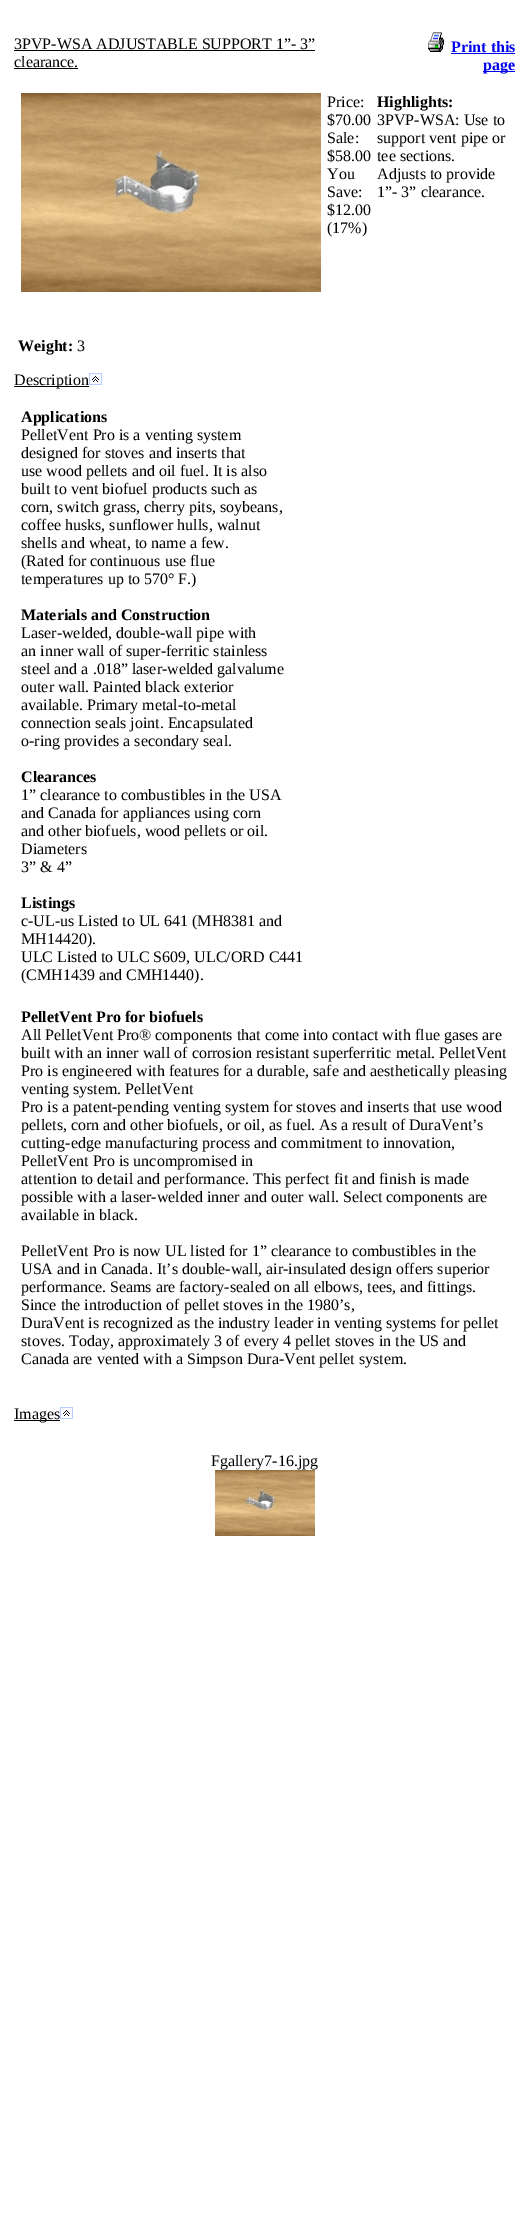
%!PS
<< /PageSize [529 2223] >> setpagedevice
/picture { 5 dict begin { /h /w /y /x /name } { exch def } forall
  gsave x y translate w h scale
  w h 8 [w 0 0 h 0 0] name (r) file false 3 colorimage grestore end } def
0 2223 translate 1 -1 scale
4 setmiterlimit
1 setgray
0 0 529 2223 rectfill
/LiberationSerif-Regular [16 0 0 -16 0 0] selectfont
0 setgray
14 49 moveto (3PVP-WSA ADJUSTABLE SUPPORT 1”- 3”) show
14 50 301 1 rectfill
14 67 moveto (clearance.) show
14 68 64 1 rectfill
(img1.rgb) 428 32 16 20 picture
/LiberationSerif-Bold [16 0 0 -16 0 0] selectfont
0 0 0.933 setrgbcolor
451 52 moveto (Print this) show
451 53 64 1 rectfill
483 71 32 1 rectfill
483 70 moveto (page) show
(img2.rgb) 21 93 300 199 picture
/LiberationSerif-Regular [16 0 0 -16 0 0] selectfont
0 setgray
327 107 moveto (Price:) show
327 125 moveto ($70.00) show
327 143 moveto (Sale:) show
327 161 moveto ($58.00) show
327 179 moveto (You) show
327 197 moveto (Save:) show
327 215 moveto ($12.00) show
327 233 moveto (\(17%\)) show
/LiberationSerif-Bold [16 0 0 -16 0 0] selectfont
377 107 moveto (Highlights:) show
/LiberationSerif-Regular [16 0 0 -16 0 0] selectfont
377 125 moveto (3PVP-WSA: Use to) show
377 143 moveto (support vent pipe or) show
377 161 moveto (tee sections.) show
377 179 moveto (Adjusts to provide) show
377 197 moveto (1”- 3” clearance.) show
/LiberationSerif-Bold [16 0 0 -16 0 0] selectfont
18 351 moveto (Weight:) show
/LiberationSerif-Regular [16 0 0 -16 0 0] selectfont
77 351 moveto (3) show
14 386 75 1 rectfill
14 385 moveto (Description) show
(img3.rgb) 89 373 13 12 picture
/LiberationSerif-Bold [16 0 0 -16 0 0] selectfont
21 422 moveto (Applications) show
/LiberationSerif-Regular [16 0 0 -16 0 0] selectfont
21 440 moveto (PelletVent Pro is a venting system) show
21 458 moveto (designed for stoves and inserts that) show
21 476 moveto (use wood pellets and oil fuel. It is also) show
21 494 moveto (built to vent biofuel products such as) show
21 512 moveto (corn, switch grass, cherry pits, soybeans,) show
21 530 moveto (coffee husks, sunflower hulls, walnut) show
21 548 moveto (shells and wheat, to name a few.) show
21 566 moveto (\(Rated for continuous use flue) show
21 584 moveto (temperatures up to 570° F.\)) show
/LiberationSerif-Bold [16 0 0 -16 0 0] selectfont
21 620 moveto (Materials and Construction) show
/LiberationSerif-Regular [16 0 0 -16 0 0] selectfont
21 638 moveto (Laser-welded, double-wall pipe with) show
21 656 moveto (an inner wall of super-ferritic stainless) show
21 674 moveto (steel and a .018” laser-welded galvalume) show
21 692 moveto (outer wall. Painted black exterior) show
21 710 moveto (available. Primary metal-to-metal) show
21 728 moveto (connection seals joint. Encapsulated) show
21 746 moveto (o-ring provides a secondary seal.) show
/LiberationSerif-Bold [16 0 0 -16 0 0] selectfont
21 782 moveto (Clearances) show
/LiberationSerif-Regular [16 0 0 -16 0 0] selectfont
21 800 moveto (1” clearance to combustibles in the USA) show
21 818 moveto (and Canada for appliances using corn) show
21 836 moveto (and other biofuels, wood pellets or oil.) show
21 854 moveto (Diameters) show
21 872 moveto (3” & 4”) show
/LiberationSerif-Bold [16 0 0 -16 0 0] selectfont
21 908 moveto (Listings) show
/LiberationSerif-Regular [16 0 0 -16 0 0] selectfont
21 926 moveto (c-UL-us Listed to UL 641 \(MH8381 and) show
21 944 moveto (MH14420\).) show
21 962 moveto (ULC Listed to ULC S609, ULC/ORD C441) show
21 980 moveto (\(CMH1439 and CMH1440\).) show
/LiberationSerif-Bold [16 0 0 -16 0 0] selectfont
21 1022 moveto (PelletVent Pro for biofuels) show
/LiberationSerif-Regular [16 0 0 -16 0 0] selectfont
21 1040 moveto (All PelletVent Pro® components that come into contact with flue gases are) show
21 1058 moveto (built with an inner wall of corrosion resistant superferritic metal. PelletVent) show
21 1076 moveto (Pro is engineered with features for a durable, safe and aesthetically pleasing) show
21 1094 moveto (venting system. PelletVent) show
21 1112 moveto (Pro is a patent-pending venting system for stoves and inserts that use wood) show
21 1130 moveto (pellets, corn and other biofuels, or oil, as fuel. As a result of DuraVent’s) show
21 1148 moveto (cutting-edge manufacturing process and commitment to innovation,) show
21 1166 moveto (PelletVent Pro is uncompromised in) show
21 1184 moveto (attention to detail and performance. This perfect fit and finish is made) show
21 1202 moveto (possible with a laser-welded inner and outer wall. Select components are) show
21 1220 moveto (available in black.) show
21 1256 moveto (PelletVent Pro is now UL listed for 1” clearance to combustibles in the) show
21 1274 moveto (USA and in Canada. It’s double-wall, air-insulated design offers superior) show
21 1292 moveto (performance. Seams are factory-sealed on all elbows, tees, and fittings.) show
21 1310 moveto (Since the introduction of pellet stoves in the 1980’s,) show
21 1328 moveto (DuraVent is recognized as the industry leader in venting systems for pellet) show
21 1346 moveto (stoves. Today, approximately 3 of every 4 pellet stoves in the US and) show
21 1364 moveto (Canada are vented with a Simpson Dura-Vent pellet system.) show
14 1420 46 1 rectfill
14 1419 moveto (Images) show
(img3.rgb) 60 1407 13 12 picture
211 1466 moveto (Fgallery7-16.jpg) show
(img4.rgb) 215 1470 100 66 picture
showpage
